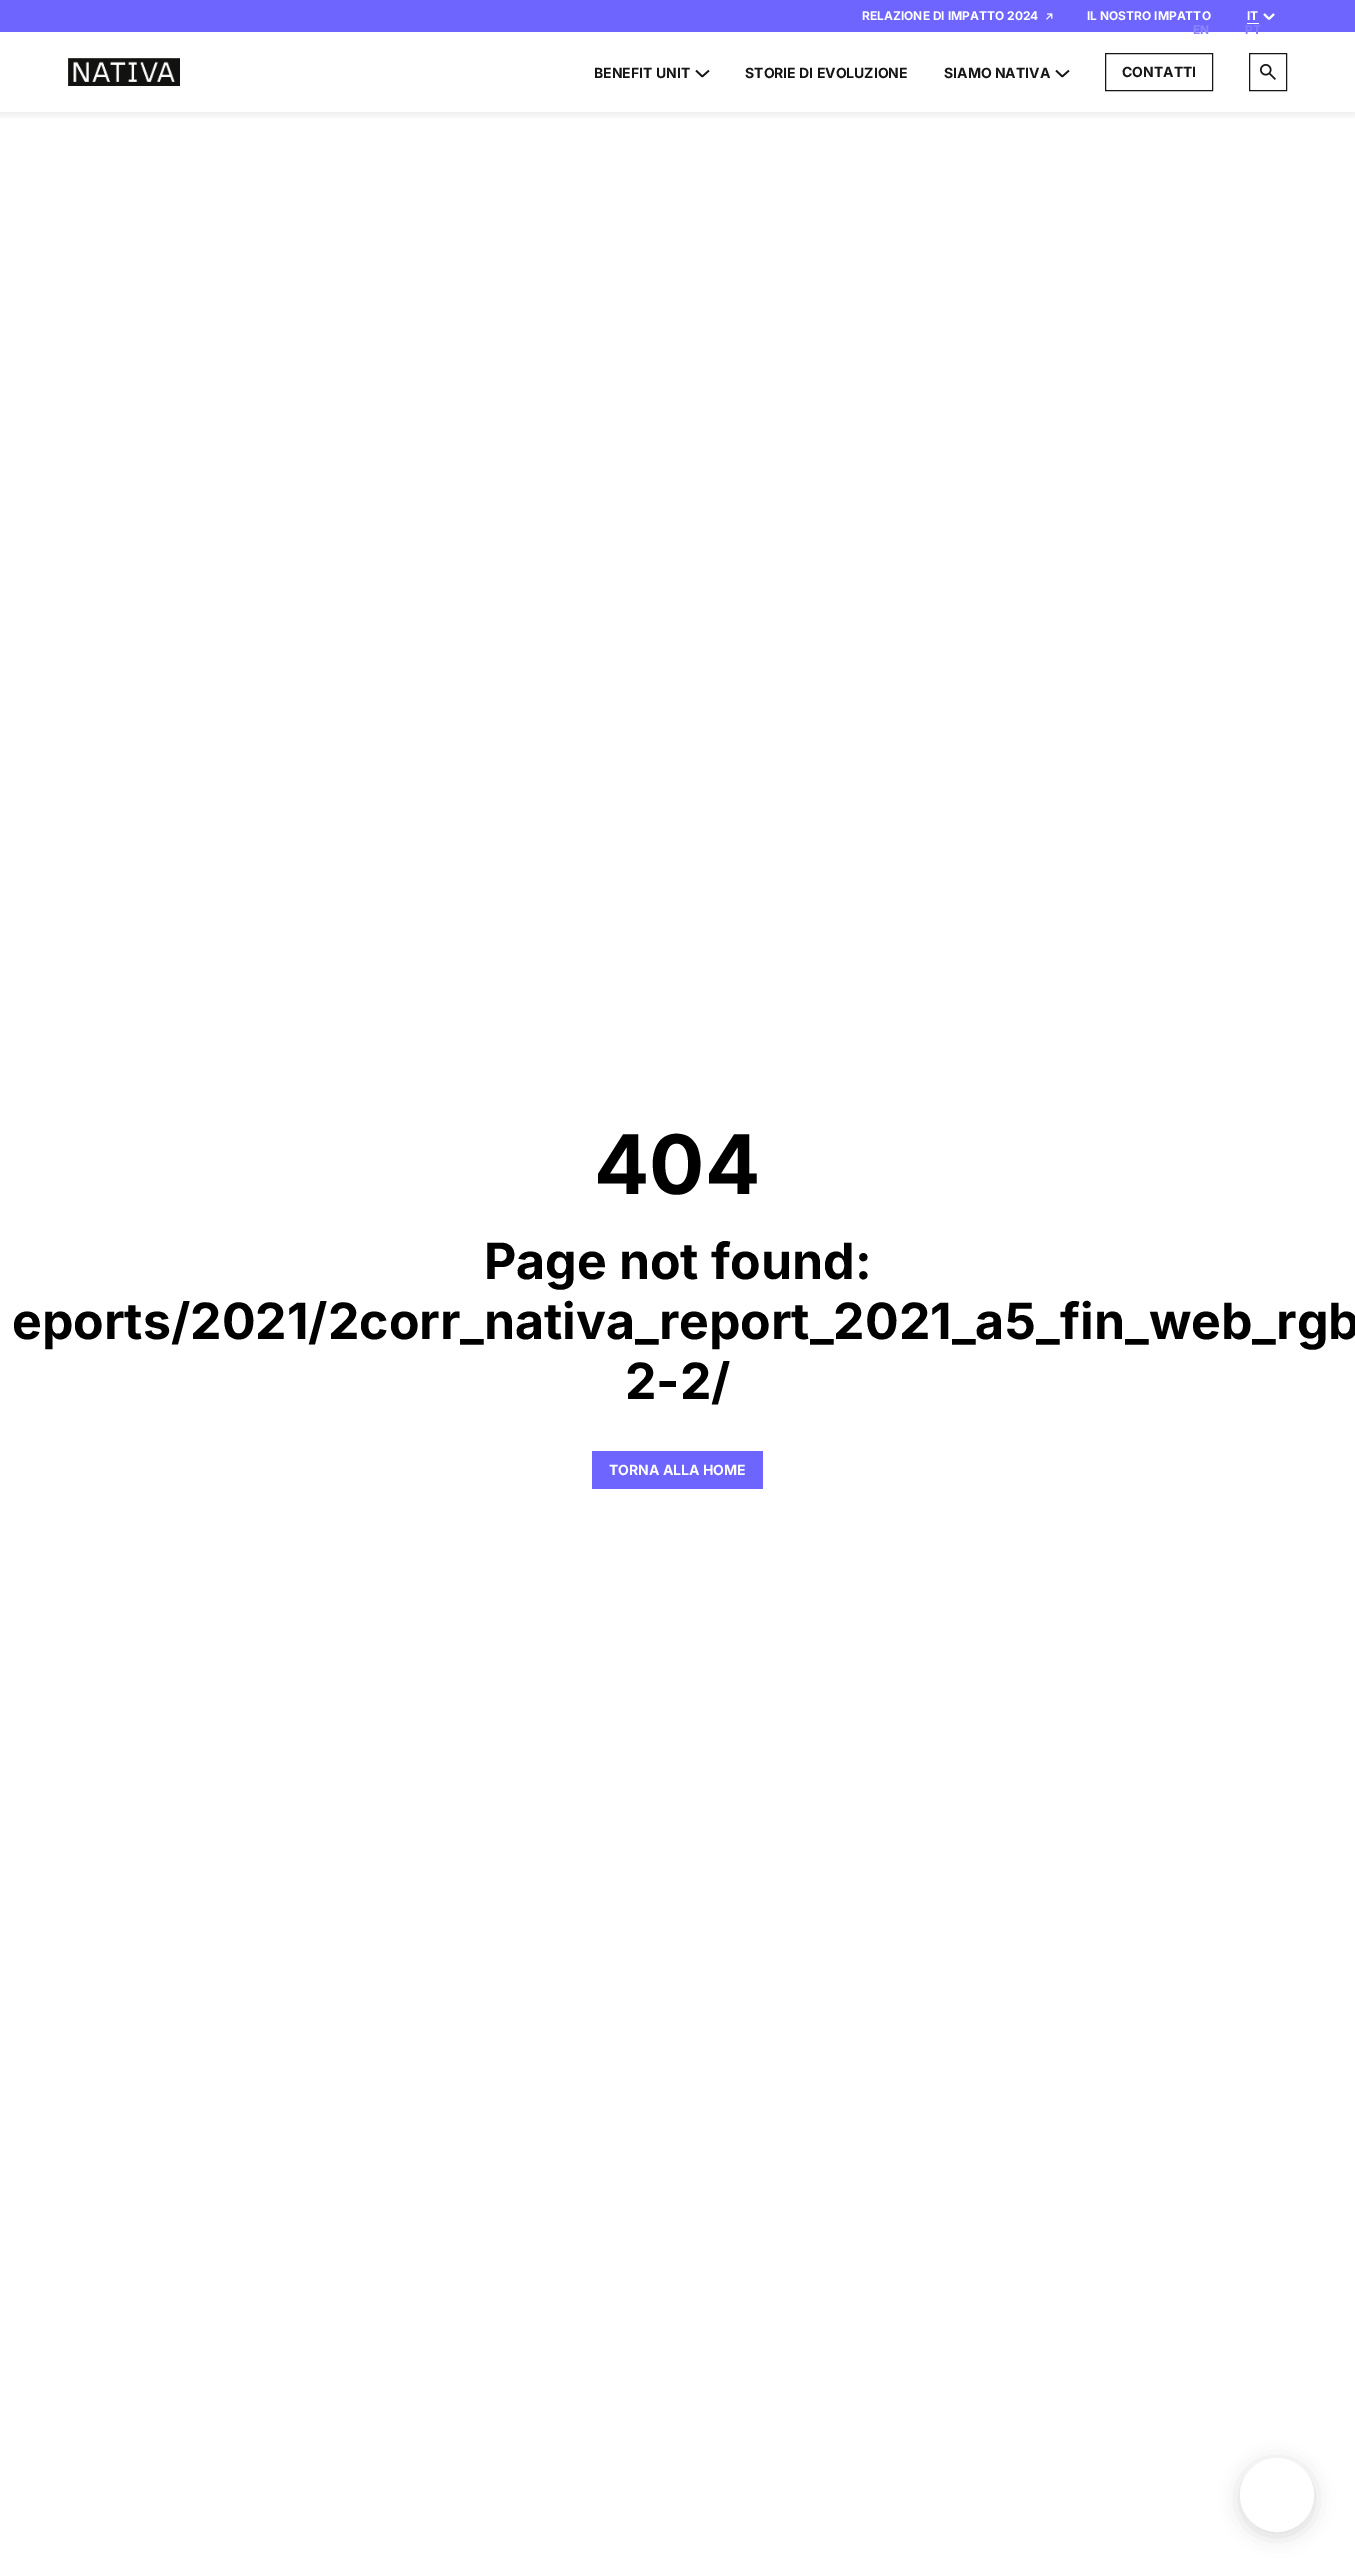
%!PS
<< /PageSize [1355 2573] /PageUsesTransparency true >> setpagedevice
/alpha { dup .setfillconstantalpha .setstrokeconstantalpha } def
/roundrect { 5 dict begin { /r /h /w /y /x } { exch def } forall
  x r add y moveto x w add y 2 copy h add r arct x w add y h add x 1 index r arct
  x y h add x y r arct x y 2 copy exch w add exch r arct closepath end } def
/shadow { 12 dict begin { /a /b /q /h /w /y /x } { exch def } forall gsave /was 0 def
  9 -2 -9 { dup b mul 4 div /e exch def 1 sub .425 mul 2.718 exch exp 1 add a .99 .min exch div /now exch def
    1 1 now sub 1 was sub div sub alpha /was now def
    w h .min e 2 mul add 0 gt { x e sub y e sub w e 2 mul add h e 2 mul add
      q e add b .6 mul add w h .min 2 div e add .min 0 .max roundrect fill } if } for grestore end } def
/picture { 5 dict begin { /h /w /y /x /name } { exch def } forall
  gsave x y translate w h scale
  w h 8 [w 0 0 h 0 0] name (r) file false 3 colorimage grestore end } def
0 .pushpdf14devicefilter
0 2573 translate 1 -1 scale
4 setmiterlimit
1 setgray
0 0 1355 2573 rectfill
gsave
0 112 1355 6 rectclip
0.09 setgray
0 2 1355 112 0 5 0.1 shadow
grestore
0.431 0.396 1 setrgbcolor
0 0 1355 32 rectfill
/Inter-Bold [12 0 0 -12 0 0] selectfont
1 setgray
862 20 moveto (RELAZIONE DI IMPATTO 2024) show
(img1.rgb) 1046 13 7 7 picture
1087 20 moveto (IL NOSTRO IMPATTO) show
1247 20 moveto (IT) show
1247 23 12 1 rectfill
2 setlinewidth
2 setlinejoin
newpath 1264 14 moveto 1269 19 lineto 1274 14 lineto stroke
0.557 0.525 1 setrgbcolor
1193 34 moveto (EN) show
0.51 0.478 1 setrgbcolor
1245 34 moveto (PT) show
(img2.rgb) 68 58 112 28 picture
/Inter-Bold [14 0 0 -14 0 0] selectfont
0.086 setgray
594 78 moveto (BENEFIT UNIT) show
(img3.rgb) 695 69 15 9 picture
745 78 moveto (STORIE DI EVOLUZIONE) show
944 78 moveto (SIAMO NATIVA) show
(img3.rgb) 1055 69 15 9 picture
1 setlinewidth
0 setlinejoin
1105.5 53.5 107 37 rectstroke
1122 77 moveto (CONTATTI) show
1249.5 53.5 37 37 rectstroke
(img4.rgb) 1260 64 16 16 picture
/Inter-Bold [82 0 0 -82 0 0] selectfont
0 setgray
594 1194 moveto (404) show
/Inter-Bold [50 0 0 -50 0 0] selectfont
484 1279 moveto (Page not found:) show
12 1339 moveto (eports/2021/2corr_nativa_report_2021_a5_fin_web_rgb) show
625 1399 moveto (2-2/) show
0.431 0.396 1 setrgbcolor
592 1451 171 38 rectfill
/Inter-Bold [14 0 0 -14 0 0] selectfont
1 setgray
609 1475 moveto (TORNA ALLA HOME) show
gsave
newpath 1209 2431 moveto 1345 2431 lineto 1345 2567 lineto 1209 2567 lineto closepath 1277 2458 moveto 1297.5 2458 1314 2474.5 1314 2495 curveto 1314 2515.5 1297.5 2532 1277 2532 curveto 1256.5 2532 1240 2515.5 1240 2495 curveto 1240 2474.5 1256.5 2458 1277 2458 curveto closepath eoclip newpath
0 setgray
1240 2462 74 74 37 10 0.15 shadow
grestore
newpath 1277 2495 36.5 0 360 arc closepath stroke
.poppdf14devicefilter showpage
